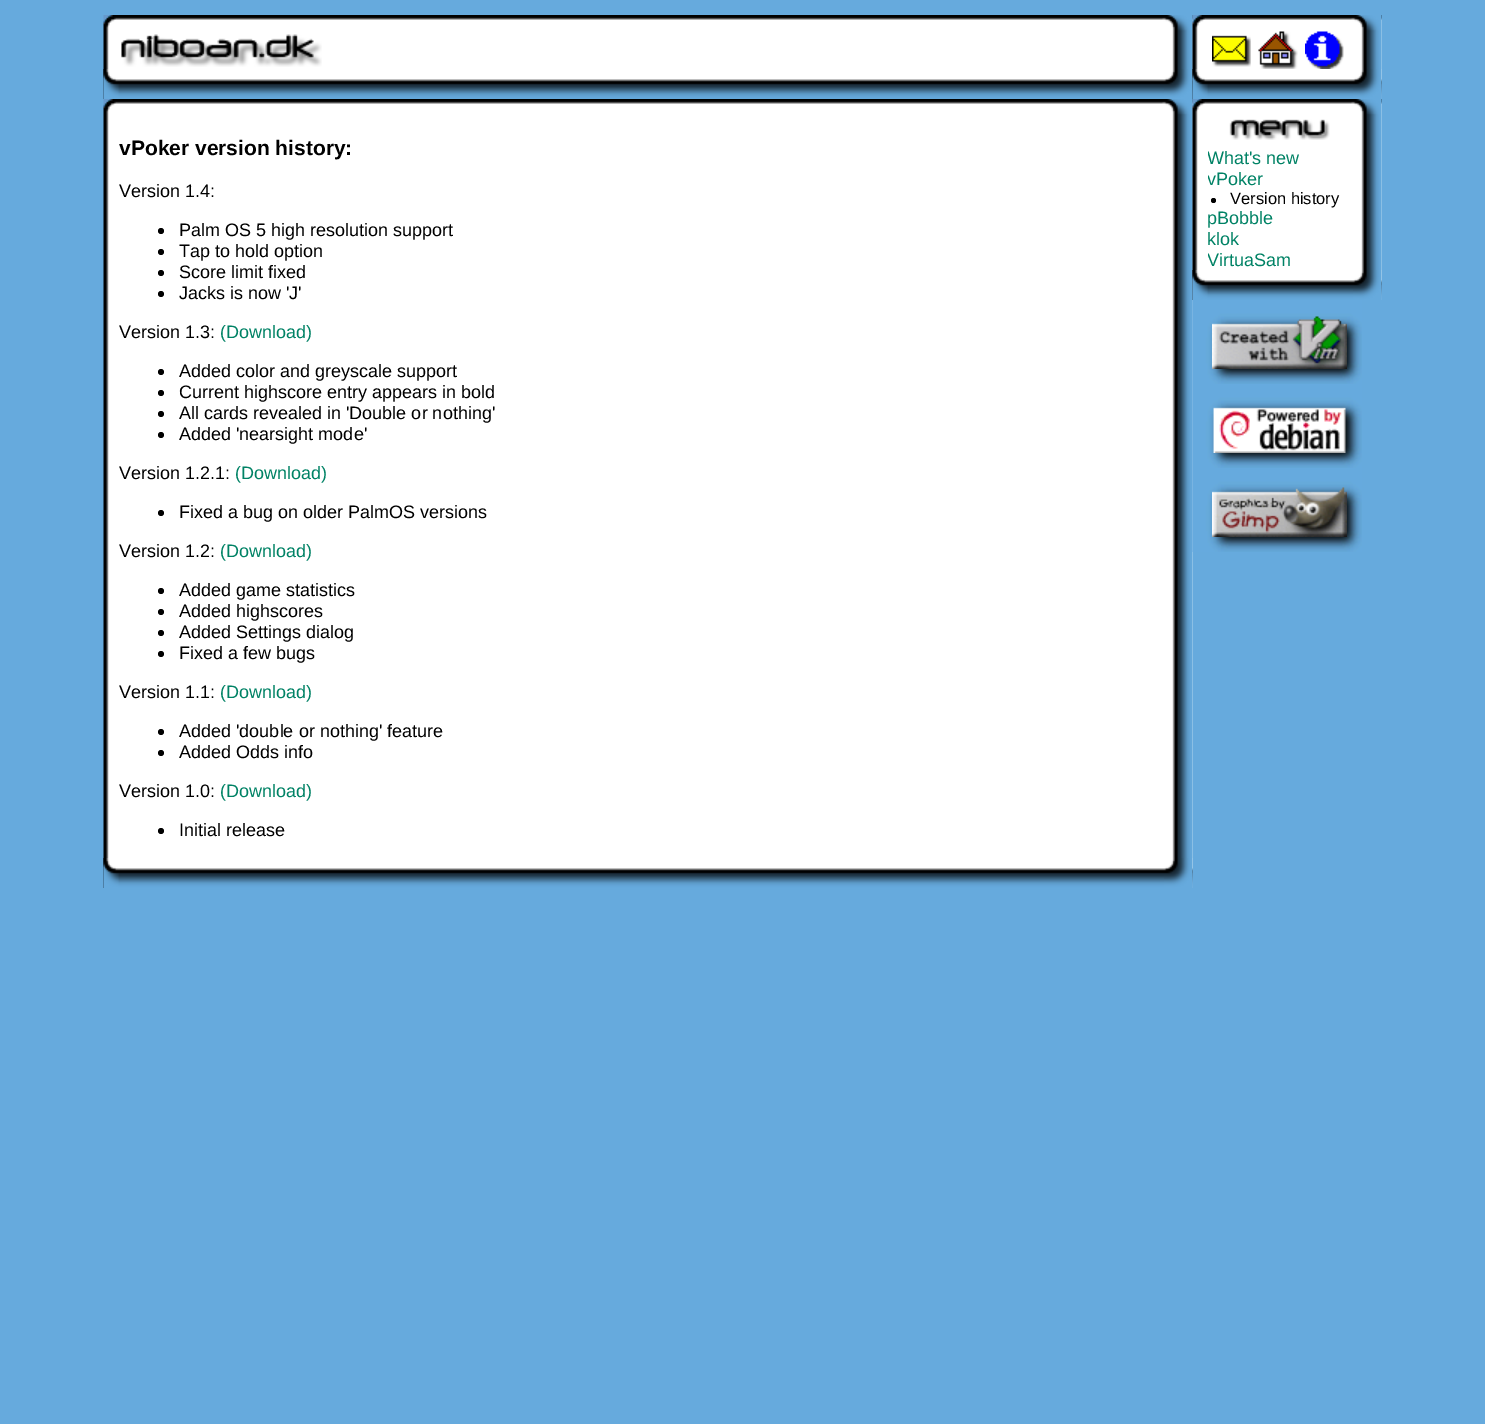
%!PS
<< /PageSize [1485 1424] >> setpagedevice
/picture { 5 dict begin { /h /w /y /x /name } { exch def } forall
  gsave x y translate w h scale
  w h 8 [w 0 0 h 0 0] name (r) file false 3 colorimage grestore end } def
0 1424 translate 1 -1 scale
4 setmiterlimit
0.4 0.667 0.867 setrgbcolor
0 0 1485 1424 rectfill
(img1.rgb) 103 15 1090 84 picture
(img2.rgb) 1162 15 31 84 picture
(img3.rgb) 103 69 1090 30 picture
(img4.rgb) 1164 69 29 30 picture
(img5.rgb) 121 34 201 33 picture
(img6.rgb) 103 99 1090 789 picture
(img7.rgb) 1162 99 31 789 picture
(img3.rgb) 103 858 1090 30 picture
(img4.rgb) 1164 858 29 30 picture
/LiberationSans-Bold [21 0 0 -21 0 0] selectfont
0 setgray
119 155 moveto (vPoker version history:) show
/LiberationSans-Regular [18 0 0 -18 0 0] selectfont
119 197 moveto (Version 1.4:) show
newpath 161 231 3 0 360 arc closepath fill
179 236 moveto (Palm OS 5 high resolution support) show
newpath 161 252 3 0 360 arc closepath fill
179 257 moveto (Tap to hold option) show
newpath 161 273 3 0 360 arc closepath fill
179 278 moveto (Score limit fixed) show
newpath 161 294 3 0 360 arc closepath fill
179 299 moveto (Jacks is now 'J') show
119 338 moveto (Version 1.3:) show
0 0.51 0.396 setrgbcolor
220 338 moveto (\(Download\)) show
0 setgray
newpath 161 372 3 0 360 arc closepath fill
179 377 moveto (Added color and greyscale support) show
newpath 161 393 3 0 360 arc closepath fill
179 398 moveto (Current highscore entry appears in bold) show
newpath 161 414 3 0 360 arc closepath fill
179 419 moveto (All cards revealed in 'Double or nothing') show
newpath 161 435 3 0 360 arc closepath fill
179 440 moveto (Added 'nearsight mode') show
119 479 moveto (Version 1.2.1:) show
0 0.51 0.396 setrgbcolor
235 479 moveto (\(Download\)) show
0 setgray
newpath 161 513 3 0 360 arc closepath fill
179 518 moveto (Fixed a bug on older PalmOS versions) show
119 557 moveto (Version 1.2:) show
0 0.51 0.396 setrgbcolor
220 557 moveto (\(Download\)) show
0 setgray
newpath 161 591 3 0 360 arc closepath fill
179 596 moveto (Added game statistics) show
newpath 161 612 3 0 360 arc closepath fill
179 617 moveto (Added highscores) show
newpath 161 633 3 0 360 arc closepath fill
179 638 moveto (Added Settings dialog) show
newpath 161 654 3 0 360 arc closepath fill
179 659 moveto (Fixed a few bugs) show
119 698 moveto (Version 1.1:) show
0 0.51 0.396 setrgbcolor
220 698 moveto (\(Download\)) show
0 setgray
newpath 161 732 3 0 360 arc closepath fill
179 737 moveto (Added 'double or nothing' feature) show
newpath 161 753 3 0 360 arc closepath fill
179 758 moveto (Added Odds info) show
119 797 moveto (Version 1.0:) show
0 0.51 0.396 setrgbcolor
220 797 moveto (\(Download\)) show
0 setgray
newpath 161 831 3 0 360 arc closepath fill
179 836 moveto (Initial release) show
(img8.rgb) 1192 15 190 84 picture
(img2.rgb) 1351 15 31 84 picture
(img9.rgb) 1192 69 190 30 picture
(img4.rgb) 1353 69 29 30 picture
(img10.rgb) 1212 35 39 32 picture
(img11.rgb) 1258 31 40 38 picture
(img12.rgb) 1305 31 39 38 picture
(img13.rgb) 1192 99 190 201 picture
(img14.rgb) 1351 99 31 201 picture
(img15.rgb) 1192 270 190 30 picture
(img4.rgb) 1353 270 29 30 picture
(img16.rgb) 1229 119 101 21 picture
gsave
1208 114 142 156 rectclip
0 0.51 0.396 setrgbcolor
1207 164 moveto (What's new) show
1207 185 moveto (vPoker) show
grestore
newpath 1213.5 200.5 2.5 0 360 arc closepath fill
/LiberationSans-Regular [16.5 0 0 -16.5 0 0] selectfont
1230 204 moveto (Version history) show
/LiberationSans-Regular [18 0 0 -18 0 0] selectfont
0 0.51 0.396 setrgbcolor
1207 224 moveto (pBobble) show
1207 245 moveto (klok) show
gsave
1208 114 142 156 rectclip
1207 266 moveto (VirtuaSam) show
grestore
(img17.rgb) 1192 300 170 84 picture
(img18.rgb) 1212 316 135 53 picture
(img19.rgb) 1192 384 170 84 picture
(img20.rgb) 1213 407 133 46 picture
(img21.rgb) 1192 468 170 84 picture
(img22.rgb) 1212 487 135 50 picture
showpage
